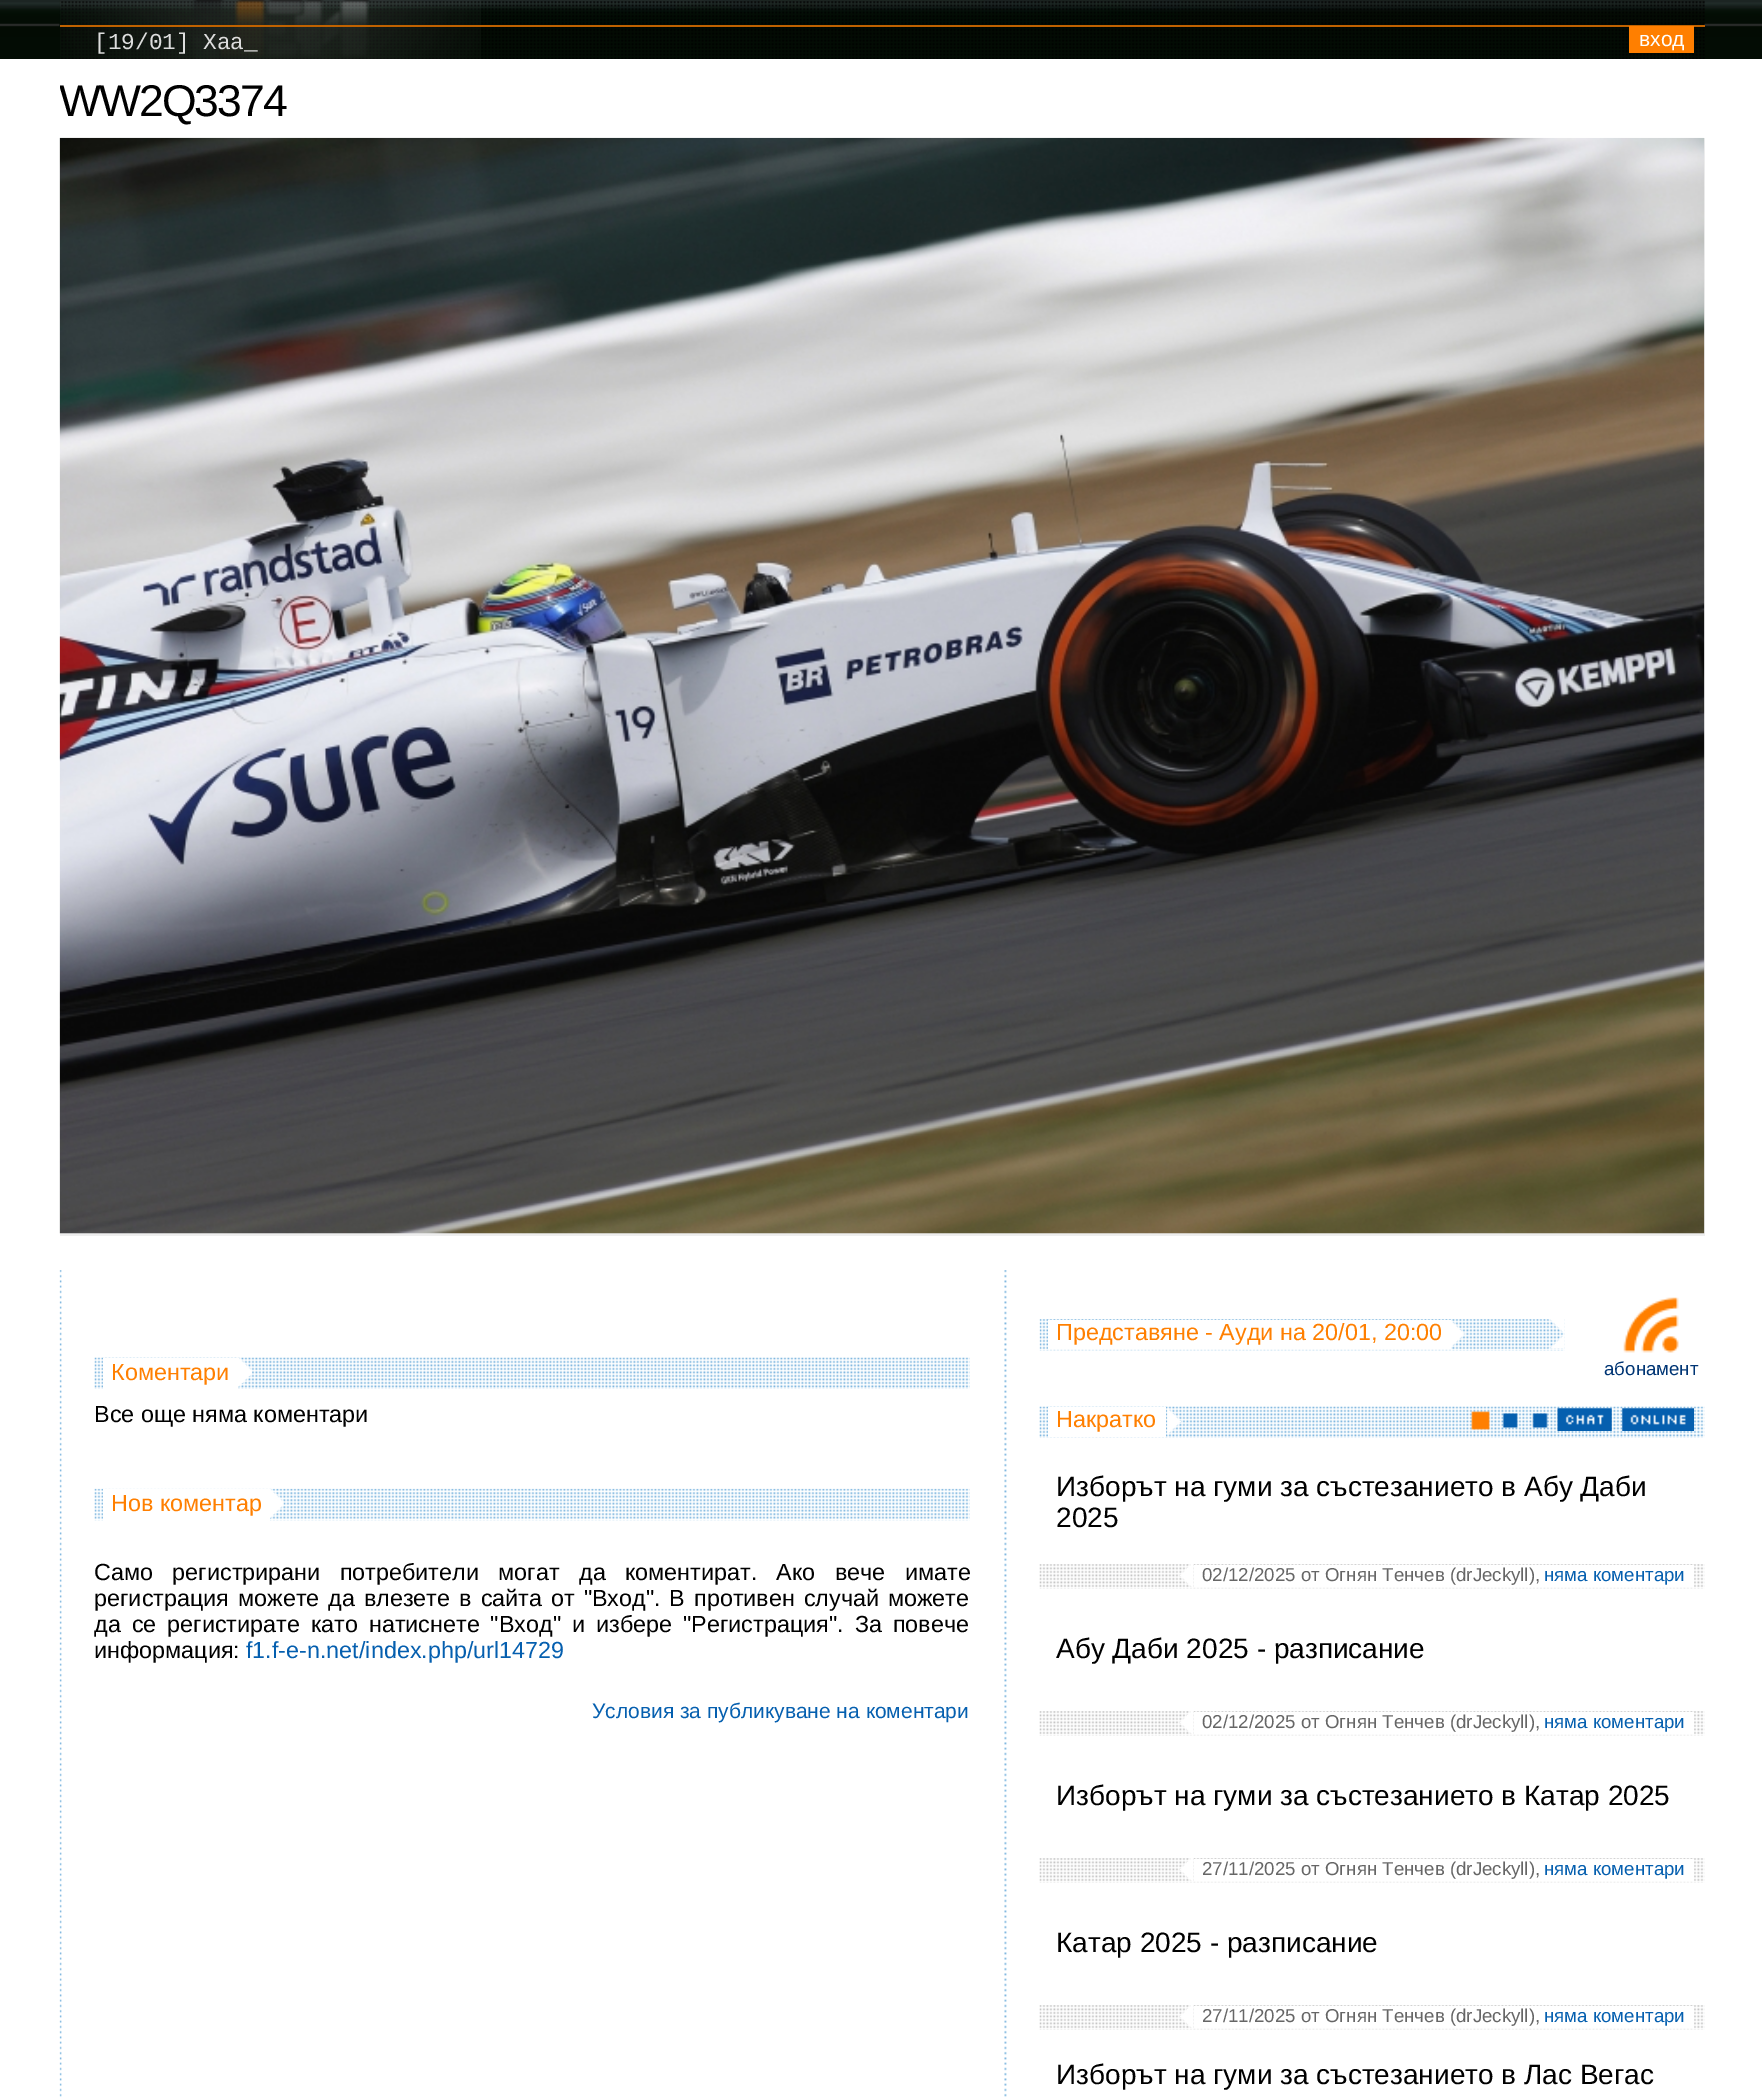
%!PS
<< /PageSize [1762 2098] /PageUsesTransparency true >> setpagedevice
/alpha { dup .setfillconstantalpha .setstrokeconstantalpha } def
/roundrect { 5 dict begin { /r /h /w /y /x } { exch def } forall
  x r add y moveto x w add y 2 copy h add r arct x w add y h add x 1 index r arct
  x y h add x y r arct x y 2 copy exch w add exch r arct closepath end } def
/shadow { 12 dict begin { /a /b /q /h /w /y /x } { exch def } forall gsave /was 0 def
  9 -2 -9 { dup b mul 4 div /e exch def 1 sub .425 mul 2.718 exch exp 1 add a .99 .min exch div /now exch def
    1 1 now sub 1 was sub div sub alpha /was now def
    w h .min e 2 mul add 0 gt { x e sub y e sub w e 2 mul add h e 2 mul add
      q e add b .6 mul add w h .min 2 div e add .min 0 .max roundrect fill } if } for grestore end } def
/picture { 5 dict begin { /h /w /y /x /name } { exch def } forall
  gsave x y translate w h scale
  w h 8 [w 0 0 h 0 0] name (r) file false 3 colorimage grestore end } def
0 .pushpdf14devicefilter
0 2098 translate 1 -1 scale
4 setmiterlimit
1 setgray
0 0 1762 2098 rectfill
(img1.rgb) 0 0 1762 59 picture
(img2.rgb) 59 0 1646 27 picture
(img3.rgb) 61 1 1644 58 picture
(img4.rgb) 60 0 421 59 picture
0.753 0.384 0 setrgbcolor
60 25 1645 2 rectfill
1 0.498 0 setrgbcolor
1629 26 65 27 rectfill
0 setgray
-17 -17 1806 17 0 9 0.6 shadow
/LiberationMono-Regular [22.75 0 0 -22.75 0 0] selectfont
0.867 setgray
94 49 moveto ([19/01] Хаа_) show
/LiberationSans-Regular [21 0 0 -21 0 0] selectfont
1 setgray
1639 46 moveto (вход) show
gsave
60 0 1645 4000 rectclip
/LiberationSans-Regular [44.5 0 0 -44.5 0 0] selectfont
0 setgray
59 116 moveto -2 0 (WW2Q3374) ashow
grestore
0.933 setgray
60 138 1645 1098 rectfill
(img5.rgb) 59 137 1646 1097 picture
(img6.rgb) 59 1270 948 827 picture
(img7.rgb) 94 1357 876 32 picture
1 setgray
103 1358 135 31 rectfill
/LiberationSans-Regular [23.35 0 0 -23.35 0 0] selectfont
1 0.498 0 setrgbcolor
111 1380 moveto (Коментари) show
(img8.rgb) 238 1357 14 30 picture
0 setgray
94 1422 moveto (Все още няма коментари) show
(img9.rgb) 94 1488 876 33 picture
1 setgray
103 1489 167 32 rectfill
1 0.498 0 setrgbcolor
111 1511 moveto (Нов коментар) show
(img10.rgb) 270 1489 14 30 picture
0 setgray
94 1580 moveto 13 0 32 (Само регистрирани потребители могат да коментират. Ако вече имате) widthshow
94 1606 moveto 2.5 0 32 (регистрация можете да влезете в сайта от "Вход". В противен случай можете) widthshow
94 1632 moveto 4.5 0 32 (да се регистирате като натиснете "Вход" и избере "Регистрация". За повече) widthshow
94 1658 moveto (информация:) show
0.02 0.373 0.686 setrgbcolor
246 1658 moveto (f1.f-e-n.net/index.php/url14729) show
/LiberationSans-Regular [21 0 0 -21 0 0] selectfont
592 1718 moveto (Условия за публикуване на коментари) show
(img11.rgb) 1039 1319 526 32 picture
1 setgray
1048 1320 403 29 rectfill
/LiberationSans-Regular [23.35 0 0 -23.35 0 0] selectfont
1 0.498 0 setrgbcolor
1056 1340 moveto (Представяне - Ауди на 20/01, 20:00) show
(img12.rgb) 1451 1320 14 27 picture
(img13.rgb) 1548 1319 17 30 picture
(img14.rgb) 1623 1297 56 56 picture
/LiberationSans-Regular [18.7 0 0 -18.7 0 0] selectfont
0 0.208 0.455 setrgbcolor
1604 1375 moveto (абонамент) show
(img15.rgb) 1039 1406 666 32 picture
1 setgray
1048 1407 118 30 rectfill
/LiberationSans-Regular [23.35 0 0 -23.35 0 0] selectfont
1 0.498 0 setrgbcolor
1056 1427 moveto (Накратко) show
(img16.rgb) 1167 1408 15 27 picture
(img17.rgb) 1471 1411 19 19 picture
(img18.rgb) 1502 1413 16 15 picture
(img19.rgb) 1532 1413 16 15 picture
(img20.rgb) 1557 1408 55 23 picture
(img21.rgb) 1622 1408 72 23 picture
/LiberationSans-Regular [28 0 0 -28 0 0] selectfont
0 setgray
1056 1496 moveto (Изборът на гуми за състезанието в Абу Даби) show
1056 1527 moveto (2025) show
(img22.rgb) 1039 1564 666 25 picture
(img23.rgb) 1179 1564 15 23 picture
1 setgray
1194 1565 500 22 rectfill
/LiberationSans-Regular [18.7 0 0 -18.7 0 0] selectfont
0.4 setgray
1202 1581 moveto (02/12/2025 от Огнян Тенчев \(drJeckyll\),) show
0.02 0.373 0.686 setrgbcolor
1544 1581 moveto (няма коментари) show
/LiberationSans-Regular [28 0 0 -28 0 0] selectfont
0 setgray
1056 1658 moveto (Абу Даби 2025 - разписание) show
(img22.rgb) 1039 1711 666 25 picture
(img23.rgb) 1179 1711 15 23 picture
1 setgray
1194 1712 500 22 rectfill
/LiberationSans-Regular [18.7 0 0 -18.7 0 0] selectfont
0.4 setgray
1202 1728 moveto (02/12/2025 от Огнян Тенчев \(drJeckyll\),) show
0.02 0.373 0.686 setrgbcolor
1544 1728 moveto (няма коментари) show
/LiberationSans-Regular [28 0 0 -28 0 0] selectfont
0 setgray
1056 1805 moveto (Изборът на гуми за състезанието в Катар 2025) show
(img22.rgb) 1039 1858 666 25 picture
(img23.rgb) 1179 1858 15 23 picture
1 setgray
1194 1859 500 22 rectfill
/LiberationSans-Regular [18.7 0 0 -18.7 0 0] selectfont
0.4 setgray
1202 1875 moveto (27/11/2025 от Огнян Тенчев \(drJeckyll\),) show
0.02 0.373 0.686 setrgbcolor
1544 1875 moveto (няма коментари) show
/LiberationSans-Regular [28 0 0 -28 0 0] selectfont
0 setgray
1056 1952 moveto (Катар 2025 - разписание) show
(img22.rgb) 1039 2005 666 25 picture
(img23.rgb) 1179 2005 15 23 picture
1 setgray
1194 2006 500 22 rectfill
/LiberationSans-Regular [18.7 0 0 -18.7 0 0] selectfont
0.4 setgray
1202 2022 moveto (27/11/2025 от Огнян Тенчев \(drJeckyll\),) show
0.02 0.373 0.686 setrgbcolor
1544 2022 moveto (няма коментари) show
/LiberationSans-Regular [28 0 0 -28 0 0] selectfont
0 setgray
1056 2084 moveto (Изборът на гуми за състезанието в Лас Вегас) show
.poppdf14devicefilter showpage
